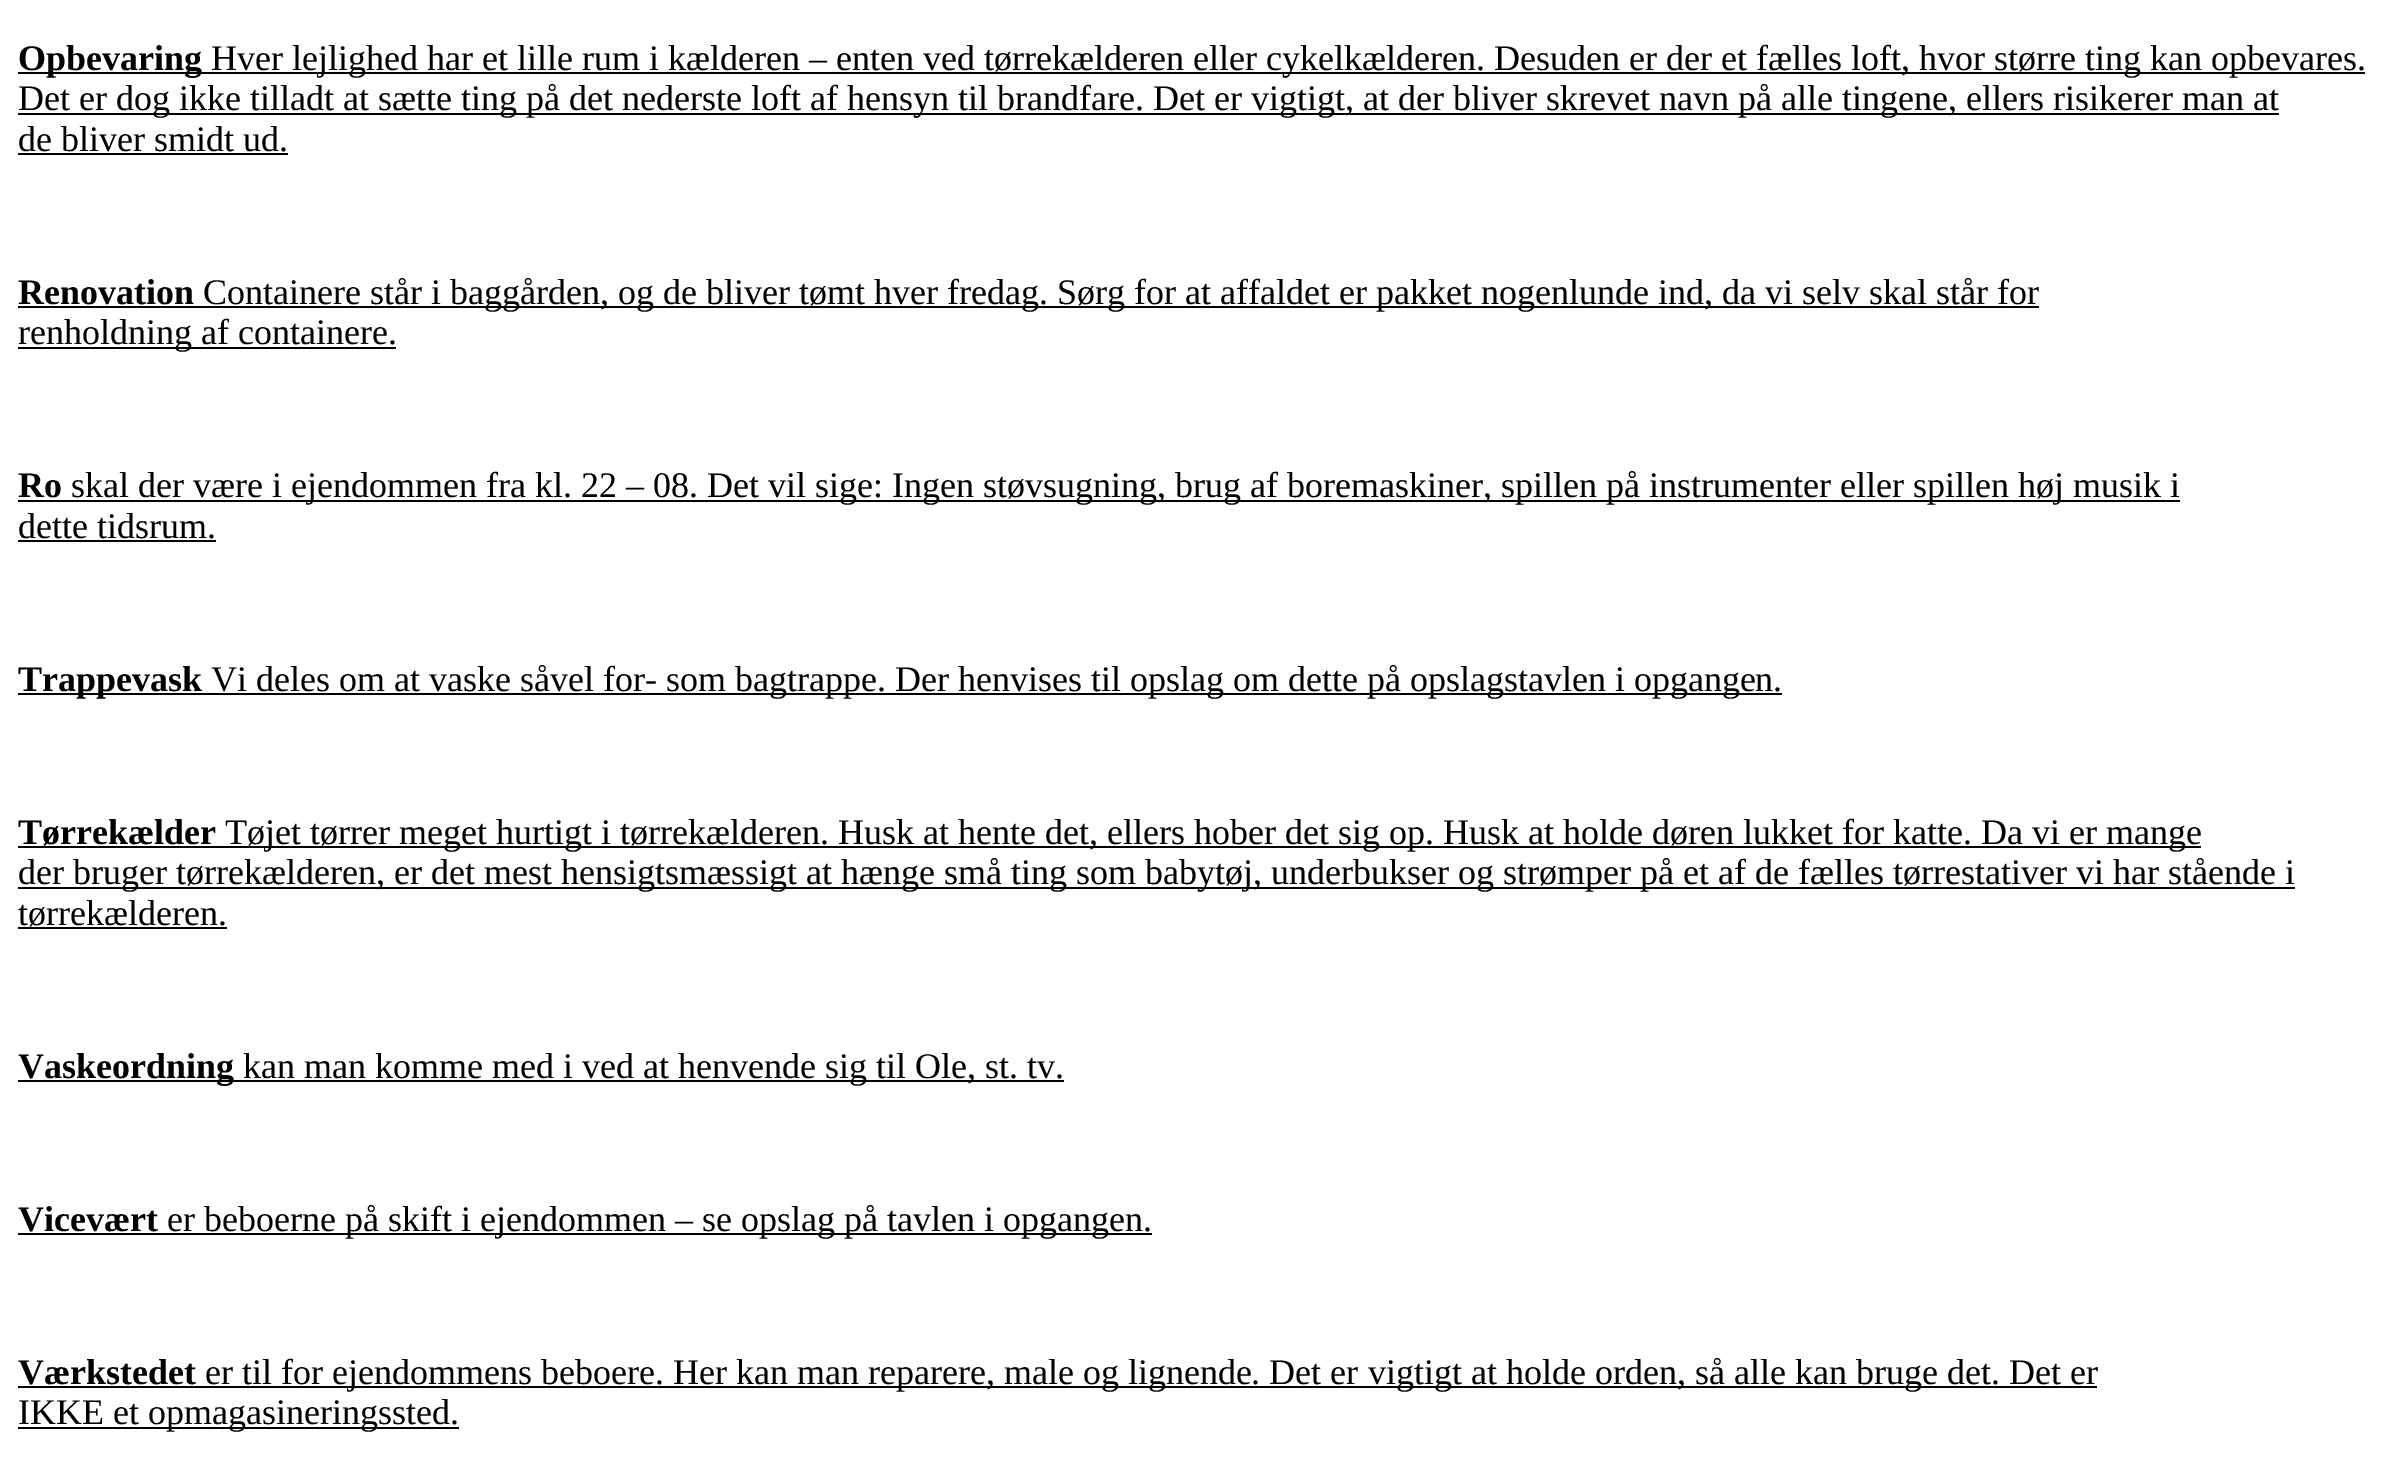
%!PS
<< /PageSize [2388 1468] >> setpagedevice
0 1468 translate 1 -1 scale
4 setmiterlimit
1 setgray
0 0 2388 1468 rectfill
0 setgray
18 72 956 2 rectfill
/LiberationSerif-Bold [36 0 0 -36 0 0] selectfont
18 70 moveto (Opbevaring) show
/LiberationSerif-Regular [36 0 0 -36 0 0] selectfont
211 70 moveto (Hver lejlighed har et lille rum i kælderen – enten ved tørrekælderen eller) show
974 72 772 2 rectfill
1266 70 moveto (cykelkælderen. Desuden er der et fælles) show
1746 72 619 2 rectfill
1851 70 moveto (loft, hvor større ting kan opbevares.) show
18 113 315 2 rectfill
18 110 moveto (Det er dog ikke tilladt at sætte) show
333 113 279 2 rectfill
461 110 moveto (ting på det nederste loft af) show
612 113 592 2 rectfill
847 110 moveto (hensyn til brandfare. Det er) show
1204 113 445 2 rectfill
1251 110 moveto (vigtigt, at der bliver skrevet navn) show
1649 113 122 2 rectfill
1738 110 moveto (på alle) show
1771 113 508 2 rectfill
1842 110 moveto (tingene, ellers risikerer man at) show
18 151 moveto (de bliver smidt ud.) show
18 153 270 2 rectfill
/LiberationSerif-Bold [36 0 0 -36 0 0] selectfont
18 304 moveto (Renovation) show
18 306 846 2 rectfill
/LiberationSerif-Regular [36 0 0 -36 0 0] selectfont
203 304 moveto (Containere står i baggården, og de bliver tømt hver) show
864 306 891 2 rectfill
947 304 moveto (fredag. Sørg for at affaldet er pakket nogenlunde ind, da vi selv skal står for) show
1755 306 284 2 rectfill
18 347 173 2 rectfill
18 344 moveto (renholdning af containere.) show
191 347 205 2 rectfill
/LiberationSerif-Bold [36 0 0 -36 0 0] selectfont
18 497 moveto (Ro) show
18 500 740 2 rectfill
/LiberationSerif-Regular [36 0 0 -36 0 0] selectfont
71 497 moveto (skal der være i ejendommen fra kl. 22 – 08. Det vil) show
758 500 1402 2 rectfill
815 497 moveto (sige: Ingen støvsugning, brug af boremaskiner, spillen på instrumenter eller spillen høj musik i) show
2160 500 20 2 rectfill
18 538 moveto (dette tidsrum.) show
18 540 198 2 rectfill
18 693 1755 2 rectfill
/LiberationSerif-Bold [36 0 0 -36 0 0] selectfont
18 691 moveto (Trappevask) show
/LiberationSerif-Regular [36 0 0 -36 0 0] selectfont
211 691 moveto (Vi deles om at vaske såvel for- som bagtrappe. Der henvises til opslag om dette på opslagstavlen i opgangen.) show
1773 693 9 2 rectfill
/LiberationSerif-Bold [36 0 0 -36 0 0] selectfont
18 844 moveto (Tørrekælder) show
18 846 371 2 rectfill
/LiberationSerif-Regular [36 0 0 -36 0 0] selectfont
225 844 moveto (Tøjet tørrer) show
389 846 97 2 rectfill
399 844 moveto (meget) show
486 846 333 2 rectfill
496 844 moveto (hurtigt i tørrekælderen. Husk at hente det) show
819 846 560 2 rectfill
1089 844 moveto (, ellers hober det sig) show
1379 846 822 2 rectfill
1389 844 moveto (op. Husk at holde døren lukket for katte. Da vi er mange) show
18 887 533 2 rectfill
18 884 moveto (der bruger tørrekælderen, er det mest) show
551 887 450 2 rectfill
561 884 moveto (hensigtsmæssigt at hænge små) show
1001 887 707 2 rectfill
1011 884 moveto (ting som babytøj, underbukser og strømper på et af de fælles tørrestativer vi har stående i) show
1708 887 587 2 rectfill
18 925 moveto (tørrekælderen.) show
18 927 209 2 rectfill
18 1080 848 2 rectfill
/LiberationSerif-Bold [36 0 0 -36 0 0] selectfont
18 1078 moveto (Vaskeordning) show
/LiberationSerif-Regular [36 0 0 -36 0 0] selectfont
243 1078 moveto (kan man komme med i ved at henvende sig) show
866 1080 198 2 rectfill
876 1078 moveto (til Ole, st. tv.) show
/LiberationSerif-Bold [36 0 0 -36 0 0] selectfont
18 1231 moveto (Vicevært) show
18 1233 360 2 rectfill
/LiberationSerif-Regular [36 0 0 -36 0 0] selectfont
167 1231 moveto (er beboerne på skift i) show
378 1233 596 2 rectfill
480 1231 moveto (ejendommen – se opslag på tavlen i) show
974 1233 178 2 rectfill
1003 1231 moveto (opgangen.) show
/LiberationSerif-Bold [36 0 0 -36 0 0] selectfont
18 1384 moveto (Værkstedet) show
18 1386 1303 2 rectfill
/LiberationSerif-Regular [36 0 0 -36 0 0] selectfont
205 1384 moveto (er til for ejendommens beboere. Her kan man reparere, male og lignende. Det er) show
1321 1386 776 2 rectfill
1368 1384 moveto (vigtigt at holde orden, så alle kan bruge det. Det er) show
18 1427 441 2 rectfill
18 1424 moveto (IKKE et opmagasineringssted.) show
showpage
